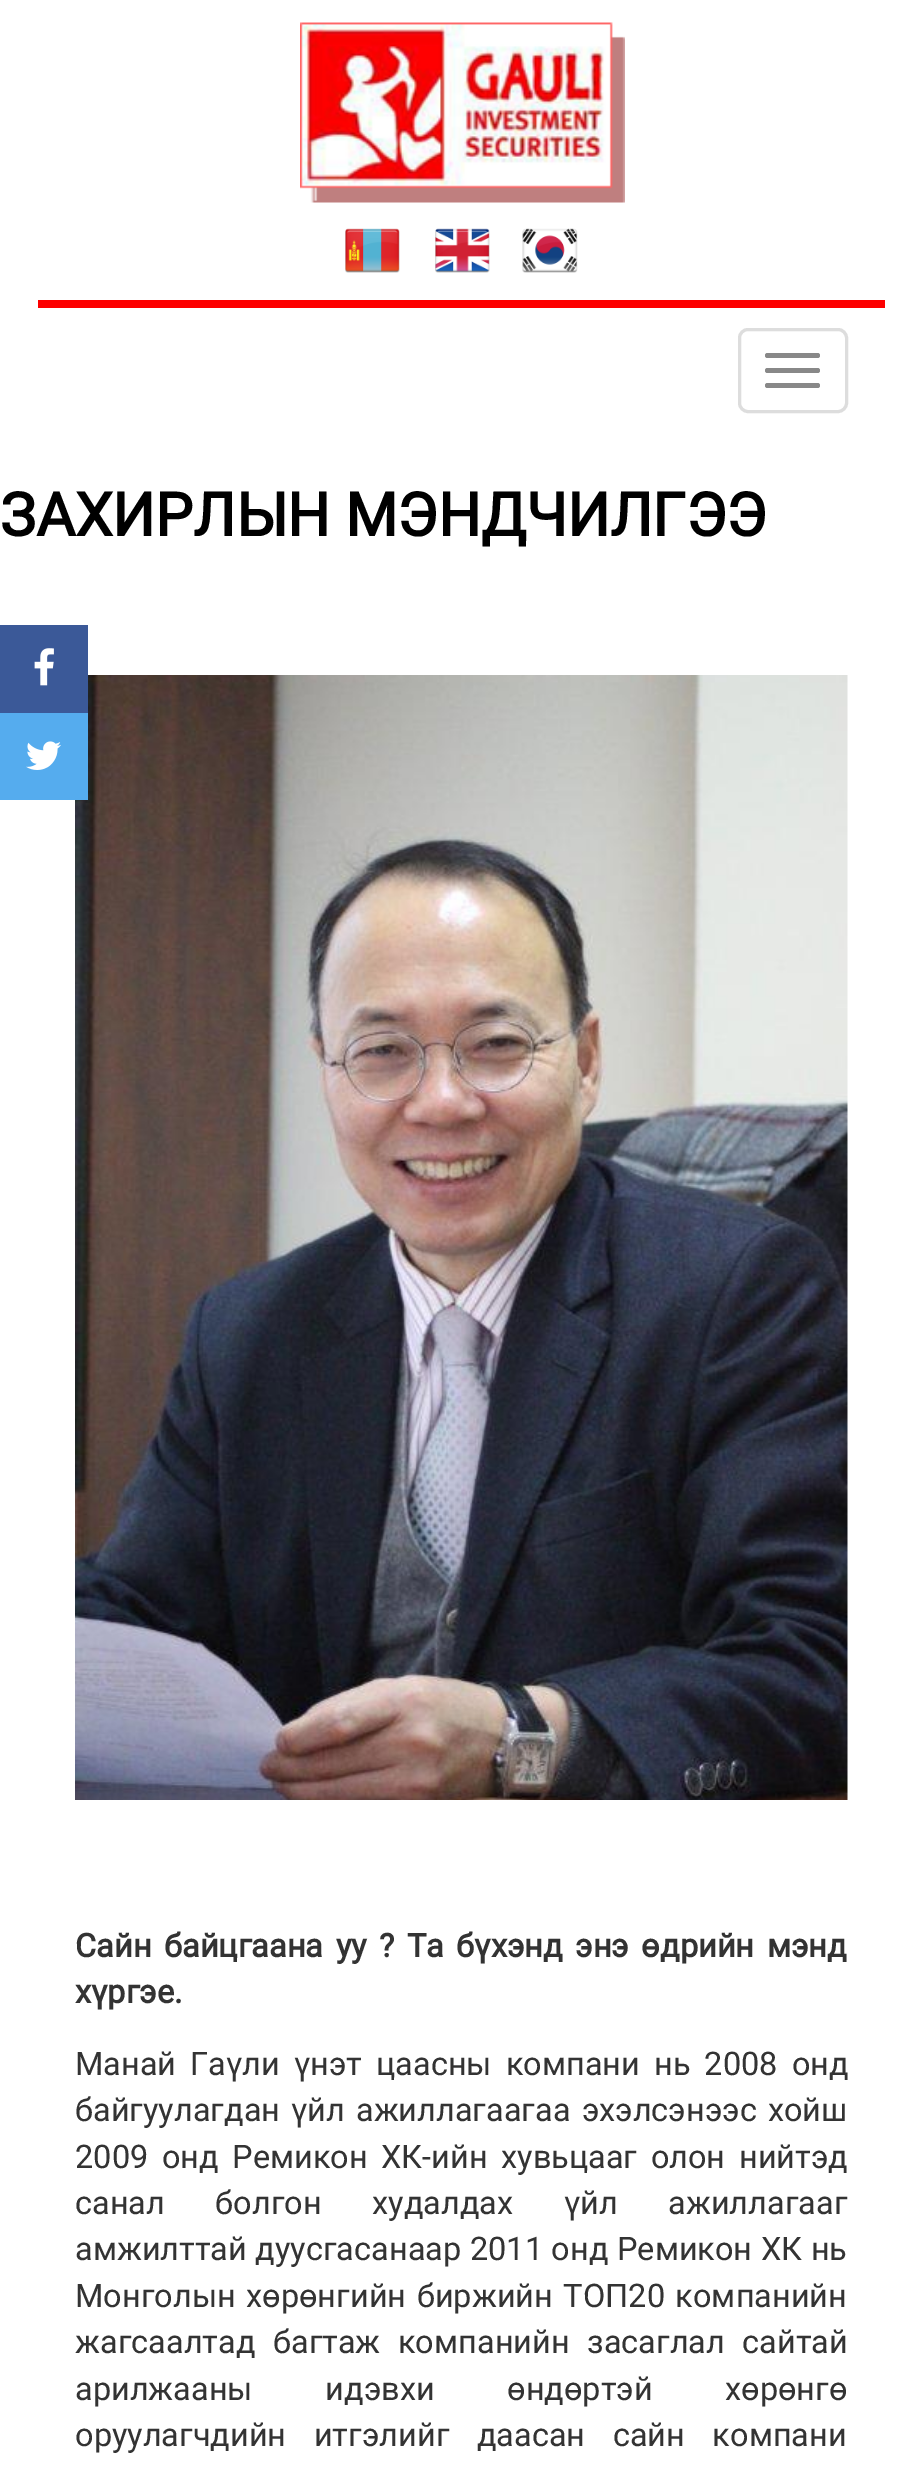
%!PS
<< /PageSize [922 2474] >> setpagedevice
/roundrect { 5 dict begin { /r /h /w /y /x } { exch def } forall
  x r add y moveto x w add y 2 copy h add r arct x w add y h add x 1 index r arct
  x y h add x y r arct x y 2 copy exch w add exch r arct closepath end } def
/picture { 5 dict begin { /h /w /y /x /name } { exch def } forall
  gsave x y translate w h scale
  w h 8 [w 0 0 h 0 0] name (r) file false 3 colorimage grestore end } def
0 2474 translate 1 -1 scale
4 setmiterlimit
1 setgray
0 0 922 2474 rectfill
(img1.rgb) 300 22 325 181 picture
(img2.rgb) 345 228 55 45 picture
(img3.rgb) 435 228 55 45 picture
(img4.rgb) 522 228 56 45 picture
0.992 0 0 setrgbcolor
38 300 847 8 rectfill
0.867 setgray
3 setlinewidth
739.5 329.5 107 82 8.5 roundrect stroke
0.533 setgray
765 353 55 5 2.5 roundrect fill
765 368 55 5 2.5 roundrect fill
765 383 55 5 2.5 roundrect fill
/Roboto-Bold [60 0 0 -60 0 0] selectfont
0 setgray
0 536 moveto (ЗАХИРЛЫН МЭНДЧИЛГЭЭ) show
(img5.rgb) 75 675 773 1125 picture
/Roboto-Bold [32.5 0 0 -32.5 0 0] selectfont
0.2 setgray
75 1957 moveto 4.5 0 32 (Сайн байцгаана уу ? Та бүхэнд энэ өдрийн мэнд) widthshow
75 2003 moveto (хүргэе.) show
/Roboto-Regular [32.5 0 0 -32.5 0 0] selectfont
75 2075 moveto 6 0 32 (Манай Гаүли үнэт цаасны компани нь 2008 онд) widthshow
75 2121 moveto 3 0 32 (байгуулагдан үйл ажиллагаагаа эхэлсэнээс хойш) widthshow
75 2168 moveto 5.5 0 32 (2009 онд Ремикон ХК-ийн хувьцааг олон нийтэд) widthshow
75 2214 moveto 42.5 0 32 (санал болгон худалдах үйл ажиллагааг) widthshow
75 2260 moveto 0.5 0 32 (амжилттай дуусгасанаар 2011 онд Ремикон ХК нь) widthshow
75 2307 moveto 2.5 0 32 (Монголын хөрөнгийн биржийн ТОП20 компанийн) widthshow
75 2353 moveto 9.5 0 32 (жагсаалтад багтаж компанийн засаглал сайтай) widthshow
75 2400 moveto 64.5 0 32 (арилжааны идэвхи өндөртэй хөрөнгө) widthshow
75 2446 moveto 19.5 0 32 (оруулагчдийн итгэлийг даасан сайн компани) widthshow
0.231 0.349 0.596 setrgbcolor
0 625 88 88 rectfill
(img6.rgb) 34 648 20 38 picture
0.333 0.675 0.933 setrgbcolor
0 713 88 87 rectfill
(img7.rgb) 26 741 35 29 picture
showpage
